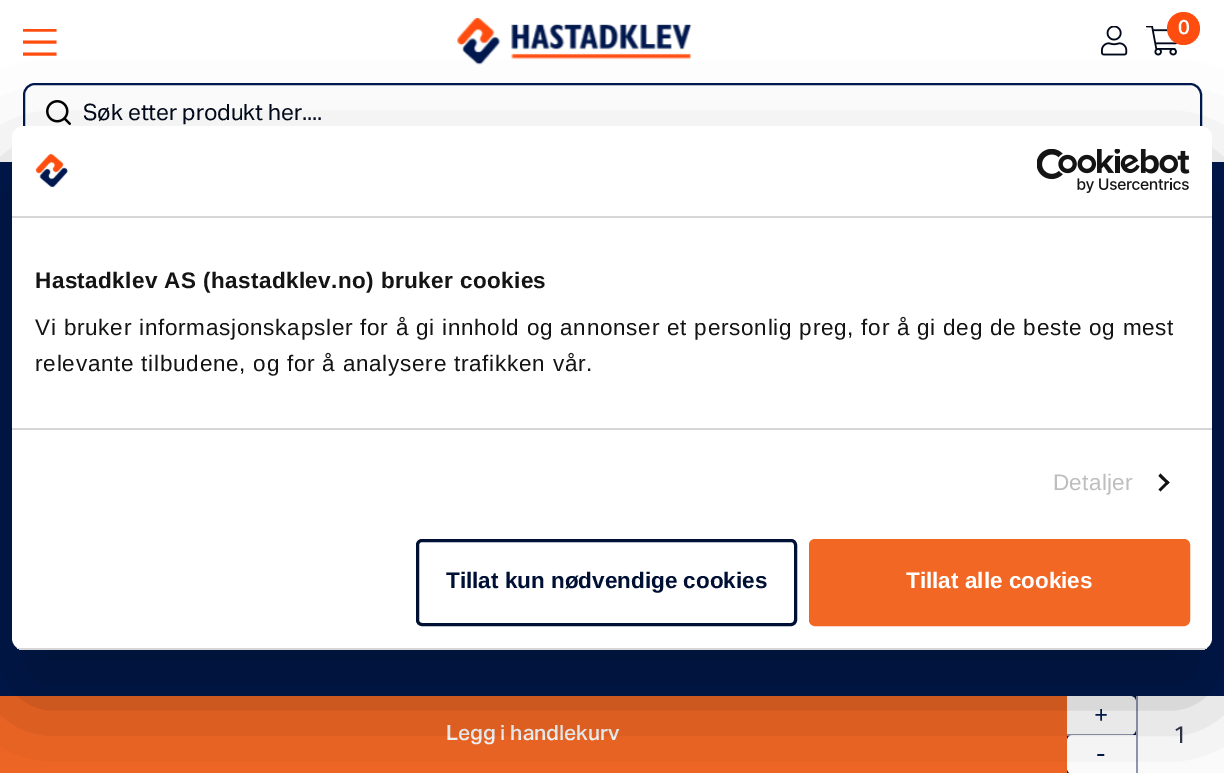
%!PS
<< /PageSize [1224 773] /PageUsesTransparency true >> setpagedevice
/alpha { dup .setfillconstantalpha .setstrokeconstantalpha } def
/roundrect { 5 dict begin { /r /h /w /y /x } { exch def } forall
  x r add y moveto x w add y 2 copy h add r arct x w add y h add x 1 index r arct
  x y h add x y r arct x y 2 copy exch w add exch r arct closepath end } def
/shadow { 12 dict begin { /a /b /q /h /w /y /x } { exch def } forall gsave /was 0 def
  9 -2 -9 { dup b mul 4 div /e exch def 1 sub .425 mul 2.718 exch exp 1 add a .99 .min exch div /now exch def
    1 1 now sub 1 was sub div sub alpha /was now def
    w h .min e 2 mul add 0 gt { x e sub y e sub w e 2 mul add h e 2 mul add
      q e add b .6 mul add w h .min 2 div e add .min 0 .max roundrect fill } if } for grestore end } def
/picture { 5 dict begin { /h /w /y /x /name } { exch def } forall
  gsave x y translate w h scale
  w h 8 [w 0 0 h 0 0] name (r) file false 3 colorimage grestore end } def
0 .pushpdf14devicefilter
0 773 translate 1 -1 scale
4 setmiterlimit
0 0.094 0.306 setrgbcolor
0 0 1224 773 rectfill
1 setgray
0 0 1224 162 rectfill
(img1.rgb) 457 18 235 47 picture
(img2.rgb) 1101 26 27 30 picture
(img3.rgb) 1146 26 32 30 picture
1 0.302 0.059 setrgbcolor
newpath 1183.5 28.5 16.5 0 360 arc closepath fill
/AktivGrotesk-Medium [20 0 0 -20 0 0] selectfont
1 setgray
1178 34 moveto (0) show
gsave
23 29 34 27 rectclip
1 0.302 0.059 setrgbcolor
2.9 setlinewidth
newpath 23 30 moveto 56.5 30 lineto stroke
grestore
1 0.302 0.059 setrgbcolor
2.9 setlinewidth
newpath 23 42 moveto 56.5 42 lineto 23 54 moveto 56.5 54 lineto stroke
0 0.094 0.306 setrgbcolor
2 setlinewidth
24 84 1177 59 11 roundrect stroke
(img4.rgb) 46 100 25 25 picture
/AktivGrotesk-Regular [22.5 0 0 -22.5 0 0] selectfont
0 0.031 0.102 setrgbcolor
83 120 moveto (Søk etter produkt her....) show
0.949 0.404 0.141 setrgbcolor
0 696 1067 77 rectfill
/AktivGrotesk-Medium [21 0 0 -21 0 0] selectfont
0.969 0.976 0.984 setrgbcolor
446 740 moveto (Legg i handlekurv) show
1 setgray
newpath 1067 696 moveto 1130 696 lineto 1133.5 696 1136 698.5 1136 702 curveto 1136 729 lineto 1136 732.5 1133.5 735 1130 735 curveto 1067 735 lineto closepath fill
0.565 0.6 0.686 setrgbcolor
1067 734 66 2 rectfill
/AktivGrotesk-Regular [24 0 0 -24 0 0] selectfont
0 0.094 0.306 setrgbcolor
1094 723 moveto (+) show
1 setgray
newpath 1073 735 moveto 1136 735 lineto 1136 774 lineto 1073 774 lineto 1069.5 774 1067 771.5 1067 768 curveto 1067 741 lineto 1067 737.5 1069.5 735 1073 735 curveto closepath fill
0 0.094 0.306 setrgbcolor
1096 762 moveto (-) show
1 setgray
1138 696 86 77 rectfill
0.565 0.6 0.686 setrgbcolor
1136 696 2 77 rectfill
0.184 0.216 0.29 setrgbcolor
1173 743 moveto (1) show
0 setgray
12 174 1200 524 12 51 0.3 shadow
1 setgray
12 126 1200 524 12 roundrect fill
0.839 setgray
12 216 1200 2 rectfill
(img5.rgb) 35 154 33 34 picture
(img6.rgb) 1037 149 153 44 picture
12 428 1200 2 rectfill
/LiberationSans-Bold [22.5 0 0 -22.5 0 0] selectfont
0.078 setgray
35 288 moveto 0.4 0 (Hastadklev AS \(hastadklev.no\) bruker cookies) ashow
/LiberationSans-Regular [22.5 0 0 -22.5 0 0] selectfont
35 335 moveto 0.75 0 (Vi bruker informasjonskapsler for å gi innhold og annonser et personlig preg, for å gi deg de beste og mest) ashow
35 371 moveto 0.75 0 (relevante tilbudene, og for å analysere trafikken vår.) ashow
0.745 setgray
1053 490 moveto 0.25 0 (Detaljer) ashow
0.078 setgray
newpath 1160.5 473.5 moveto 1169.5 482.5 lineto 1167.5 484.5 lineto 1158.5 476 lineto closepath fill
newpath 1167.5 480.5 moveto 1169.5 482.5 lineto 1160.5 491.5 lineto 1158.5 489.5 lineto closepath fill
gsave
12 126 1200 524 12 roundrect clip newpath
0.839 setgray
12 648 1200 2 rectfill
grestore
0 0.063 0.204 setrgbcolor
3 setlinewidth
417.5 540.5 378 84 4.5 roundrect stroke
/LiberationSans-Bold [22.5 0 0 -22.5 0 0] selectfont
446 588 moveto (Tillat kun nødvendige cookies) show
0.949 0.404 0.141 setrgbcolor
810.5 540.5 378 84 4.5 roundrect gsave fill grestore
stroke
1 setgray
906 588 moveto (Tillat alle cookies) show
.poppdf14devicefilter showpage
